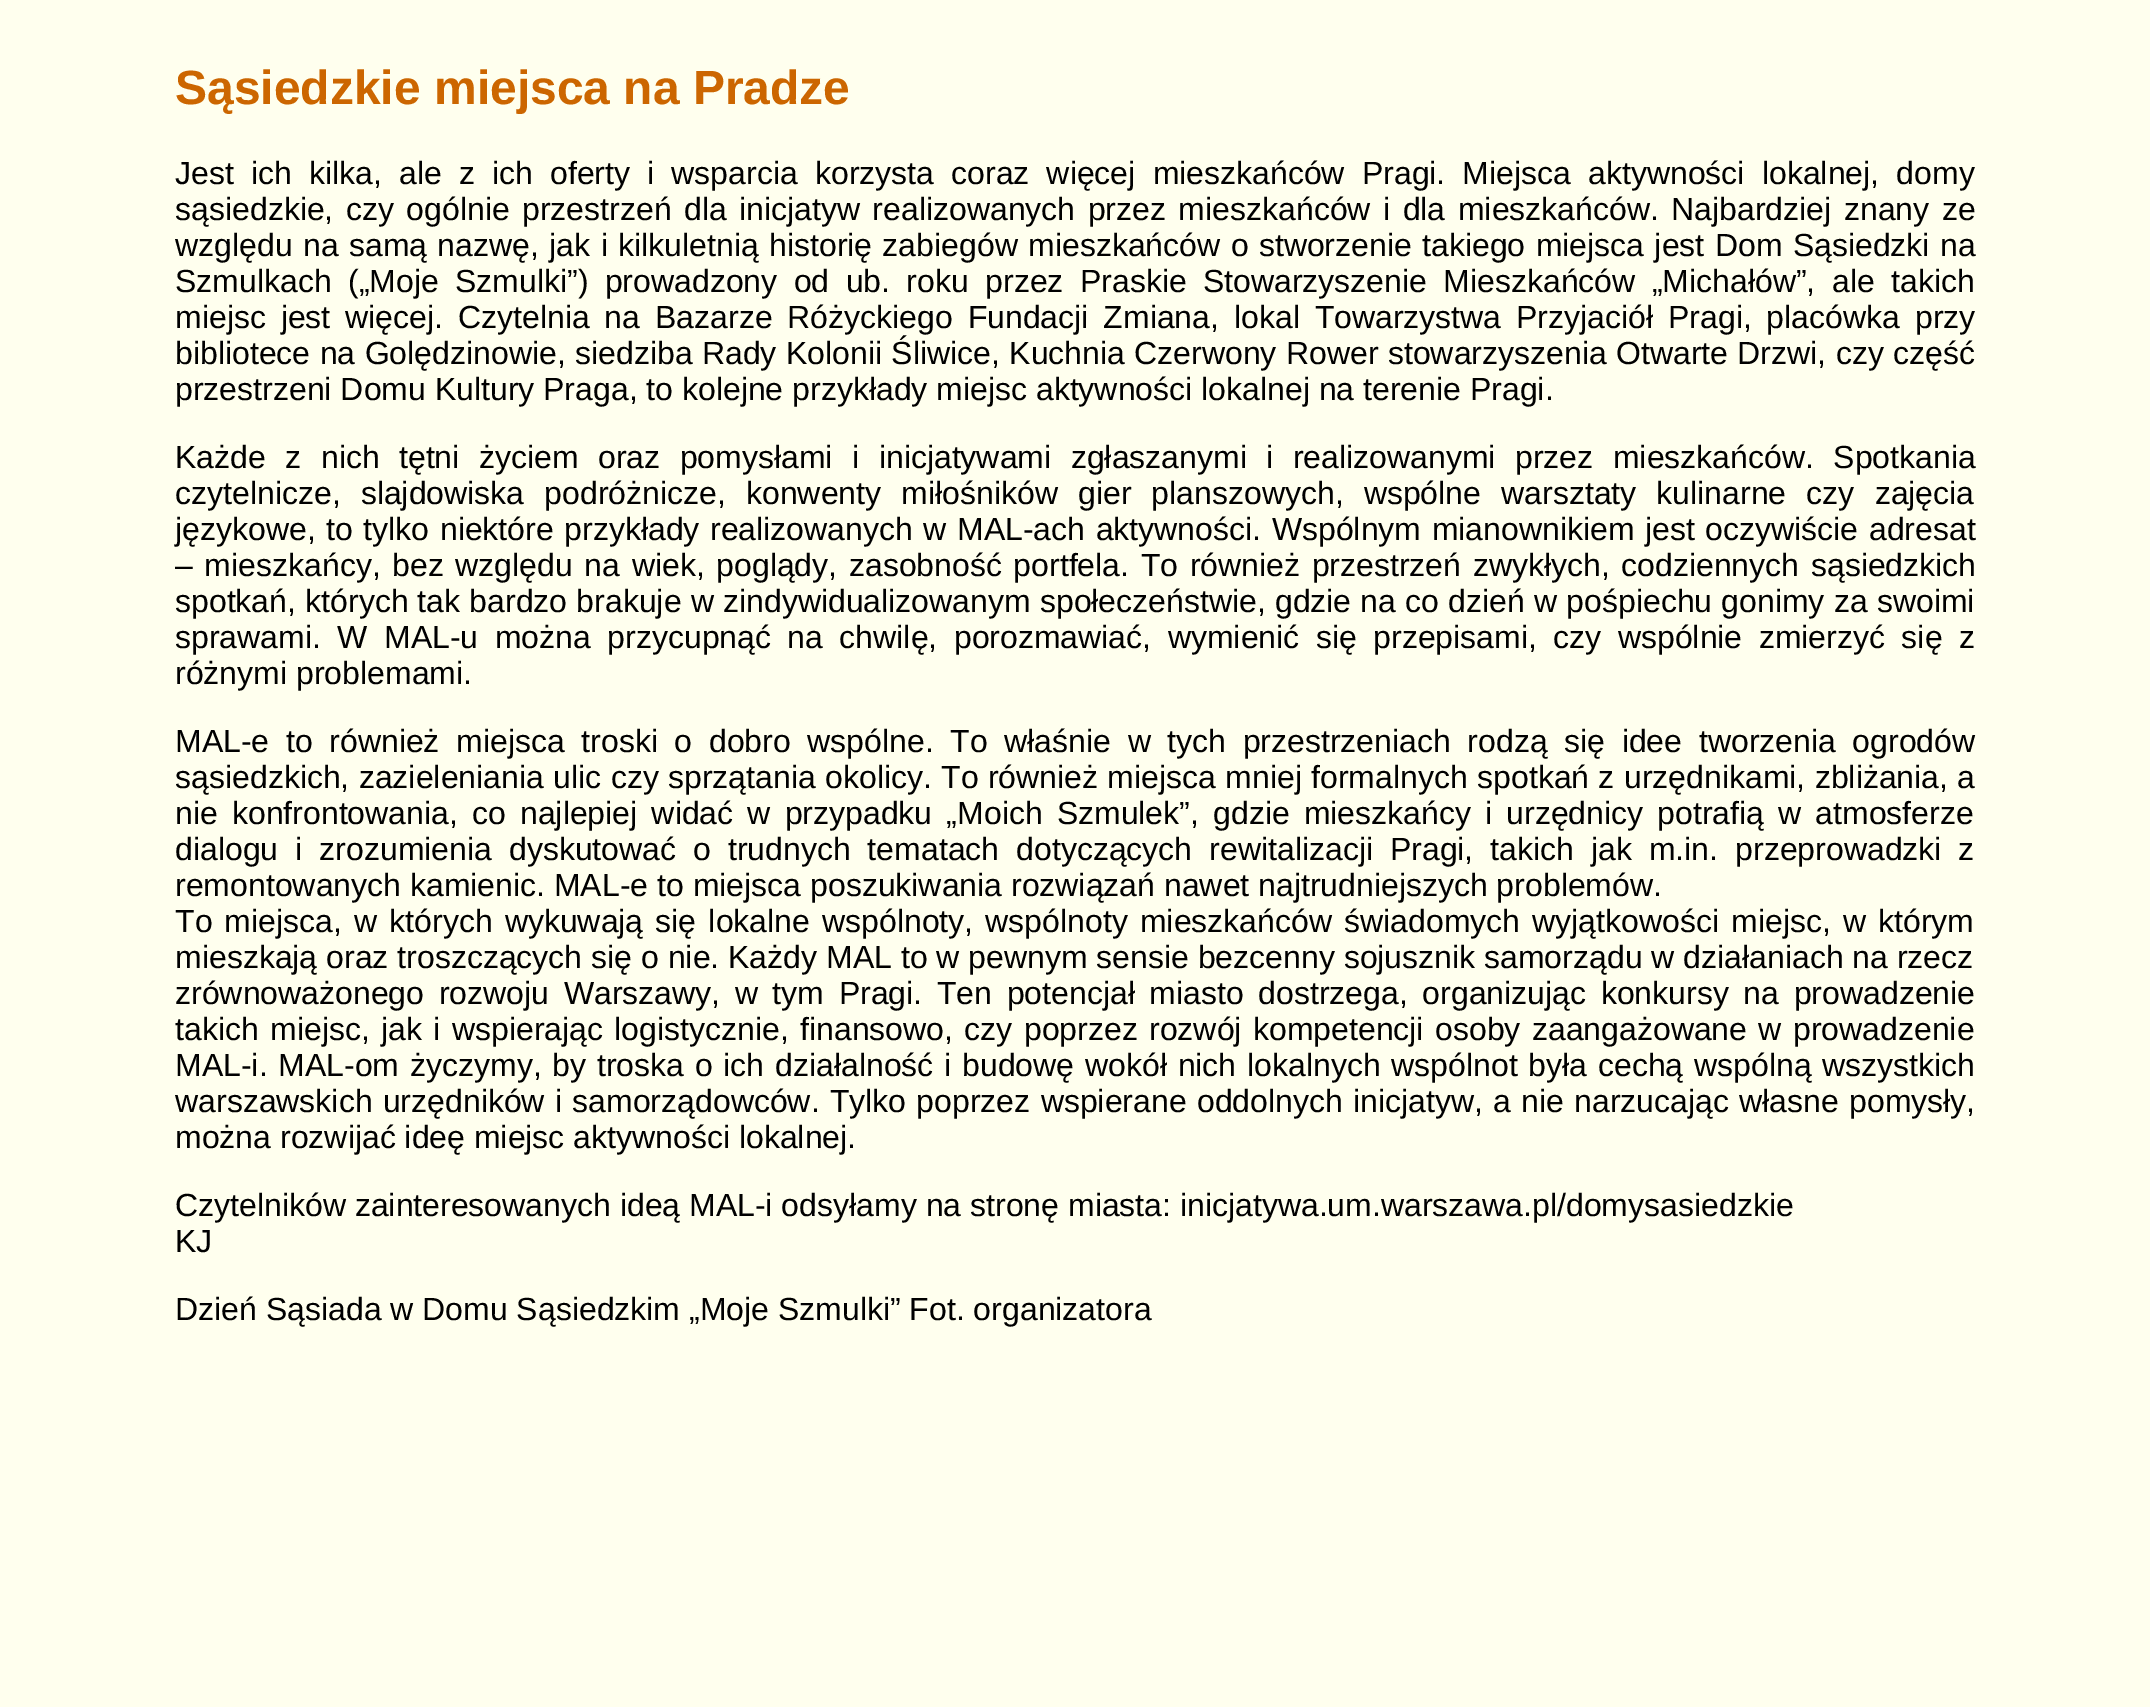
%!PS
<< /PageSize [2150 1707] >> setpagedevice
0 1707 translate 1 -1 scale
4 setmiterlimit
1 1 0.933 setrgbcolor
0 0 2150 1707 rectfill
/LiberationSans-Bold [48 0 0 -48 0 0] selectfont
0.8 0.4 0 setrgbcolor
175 104 moveto (Sąsiedzkie miejsca na Pradze) show
/LiberationSans-Regular [32 0 0 -32 0 0] selectfont
0 setgray
175 184 moveto 8.25 0 32 (Jest ich kilka, ale z ich oferty i wsparcia korzysta coraz więcej mieszkańców Pragi. Miejsca aktywności lokalnej, domy) widthshow
175 220 moveto 3.6 0 32 (sąsiedzkie, czy ogólnie przestrzeń dla inicjatyw realizowanych przez mieszkańców i dla mieszkańców. Najbardziej znany ze) widthshow
175 256 moveto 1.5 0 32 (względu na samą nazwę, jak i kilkuletnią historię zabiegów mieszkańców o stworzenie takiego miejsca jest Dom Sąsiedzki na) widthshow
175 292 moveto 7.5 0 32 (Szmulkach \(„Moje Szmulki”\) prowadzony od ub. roku przez Praskie Stowarzyszenie Mieszkańców „Michałów”, ale takich) widthshow
175 328 moveto 6 0 32 (miejsc jest więcej. Czytelnia na Bazarze Różyckiego Fundacji Zmiana, lokal Towarzystwa Przyjaciół Pragi, placówka przy) widthshow
175 364 moveto 0.5 0 32 (bibliotece na Golędzinowie, siedziba Rady Kolonii Śliwice, Kuchnia Czerwony Rower stowarzyszenia Otwarte Drzwi, czy część) widthshow
175 400 moveto (przestrzeni Domu Kultury Praga, to kolejne przykłady miejsc aktywności lokalnej na terenie Pragi.) show
175 468 moveto 10.6 0 32 (Każde z nich tętni życiem oraz pomysłami i inicjatywami zgłaszanymi i realizowanymi przez mieszkańców. Spotkania) widthshow
175 504 moveto 11.25 0 32 (czytelnicze, slajdowiska podróżnicze, konwenty miłośników gier planszowych, wspólne warsztaty kulinarne czy zajęcia) widthshow
175 540 moveto 1.7 0 32 (językowe, to tylko niektóre przykłady realizowanych w MAL-ach aktywności. Wspólnym mianownikiem jest oczywiście adresat) widthshow
175 576 moveto 2.75 0 32 (– mieszkańcy, bez względu na wiek, poglądy, zasobność portfela. To również przestrzeń zwykłych, codziennych sąsiedzkich) widthshow
175 612 moveto 0.3 0 32 (spotkań, których tak bardzo brakuje w zindywidualizowanym społeczeństwie, gdzie na co dzień w pośpiechu gonimy za swoimi) widthshow
175 648 moveto 7.6 0 32 (sprawami. W MAL-u można przycupnąć na chwilę, porozmawiać, wymienić się przepisami, czy wspólnie zmierzyć się z) widthshow
175 684 moveto (różnymi problemami.) show
175 752 moveto 7.75 0 32 (MAL-e to również miejsca troski o dobro wspólne. To właśnie w tych przestrzeniach rodzą się idee tworzenia ogrodów) widthshow
175 788 moveto 0.5 0 32 (sąsiedzkich, zazieleniania ulic czy sprzątania okolicy. To również miejsca mniej formalnych spotkań z urzędnikami, zbliżania, a) widthshow
175 824 moveto 5.25 0 32 (nie konfrontowania, co najlepiej widać w przypadku „Moich Szmulek”, gdzie mieszkańcy i urzędnicy potrafią w atmosferze) widthshow
175 860 moveto 8.1 0 32 (dialogu i zrozumienia dyskutować o trudnych tematach dotyczących rewitalizacji Pragi, takich jak m.in. przeprowadzki z) widthshow
175 896 moveto (remontowanych kamienic. MAL-e to miejsca poszukiwania rozwiązań nawet najtrudniejszych problemów.) show
175 932 moveto 3.25 0 32 (To miejsca, w których wykuwają się lokalne wspólnoty, wspólnoty mieszkańców świadomych wyjątkowości miejsc, w którym) widthshow
175 968 moveto (mieszkają oraz troszczących się o nie. Każdy MAL to w pewnym sensie bezcenny sojusznik samorządu w działaniach na rzecz) show
175 1004 moveto 5.75 0 32 (zrównoważonego rozwoju Warszawy, w tym Pragi. Ten potencjał miasto dostrzega, organizując konkursy na prowadzenie) widthshow
175 1040 moveto 2.5 0 32 (takich miejsc, jak i wspierając logistycznie, finansowo, czy poprzez rozwój kompetencji osoby zaangażowane w prowadzenie) widthshow
175 1076 moveto 1.9 0 32 (MAL-i. MAL-om życzymy, by troska o ich działalność i budowę wokół nich lokalnych wspólnot była cechą wspólną wszystkich) widthshow
175 1112 moveto 1.4 0 32 (warszawskich urzędników i samorządowców. Tylko poprzez wspierane oddolnych inicjatyw, a nie narzucając własne pomysły,) widthshow
175 1148 moveto (można rozwijać ideę miejsc aktywności lokalnej.) show
175 1216 moveto (Czytelników zainteresowanych ideą MAL-i odsyłamy na stronę miasta: inicjatywa.um.warszawa.pl/domysasiedzkie) show
175 1252 moveto (KJ) show
175 1320 moveto (Dzień Sąsiada w Domu Sąsiedzkim „Moje Szmulki” Fot. organizatora) show
showpage
